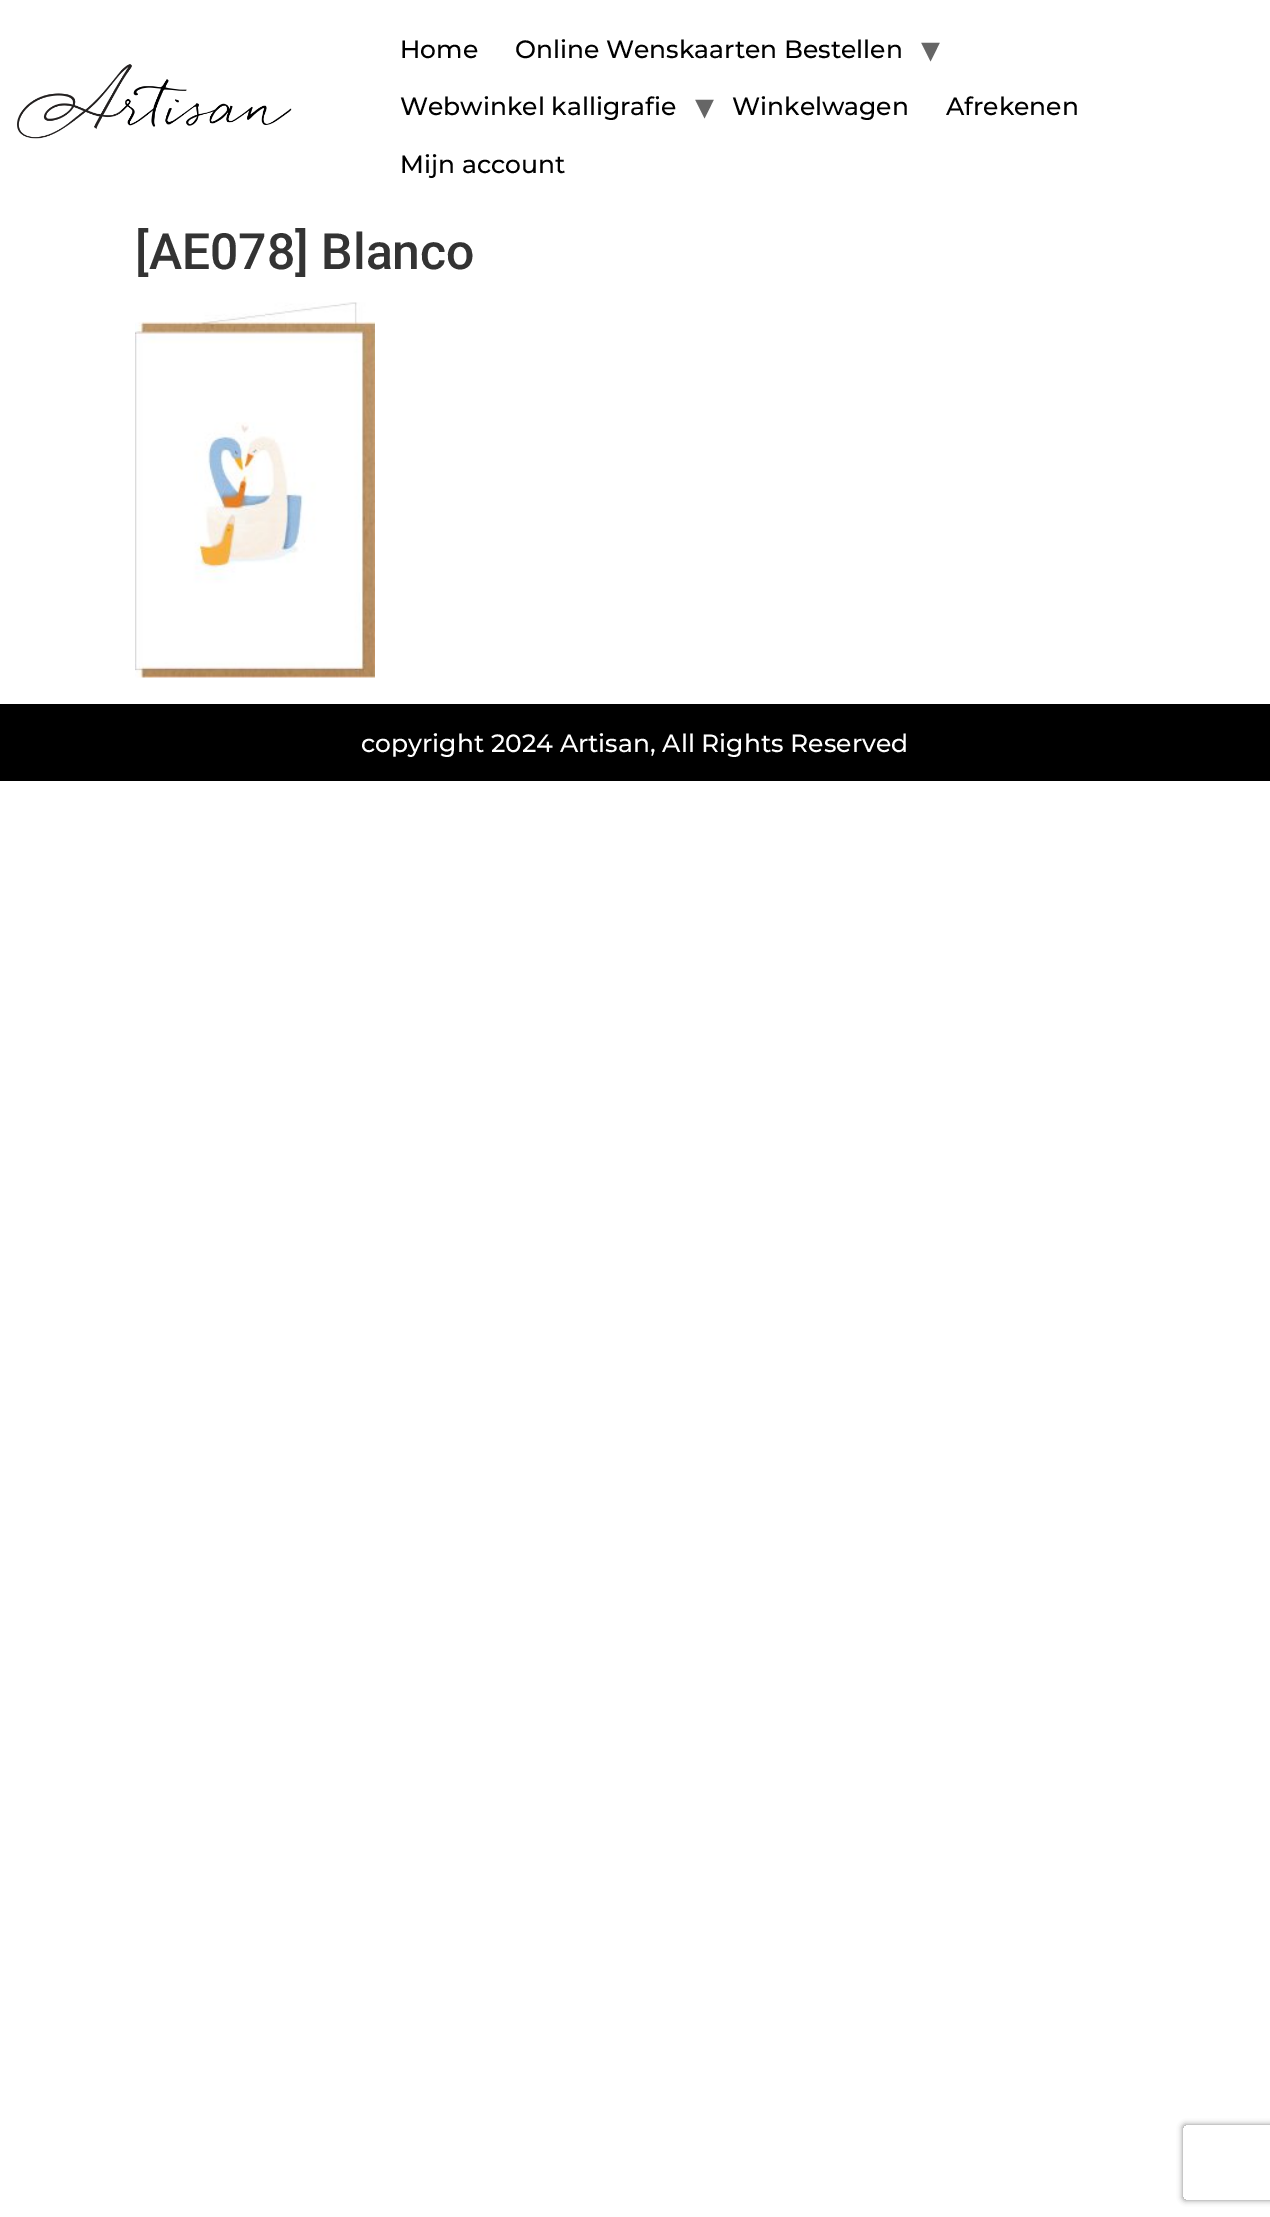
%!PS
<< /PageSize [1270 2217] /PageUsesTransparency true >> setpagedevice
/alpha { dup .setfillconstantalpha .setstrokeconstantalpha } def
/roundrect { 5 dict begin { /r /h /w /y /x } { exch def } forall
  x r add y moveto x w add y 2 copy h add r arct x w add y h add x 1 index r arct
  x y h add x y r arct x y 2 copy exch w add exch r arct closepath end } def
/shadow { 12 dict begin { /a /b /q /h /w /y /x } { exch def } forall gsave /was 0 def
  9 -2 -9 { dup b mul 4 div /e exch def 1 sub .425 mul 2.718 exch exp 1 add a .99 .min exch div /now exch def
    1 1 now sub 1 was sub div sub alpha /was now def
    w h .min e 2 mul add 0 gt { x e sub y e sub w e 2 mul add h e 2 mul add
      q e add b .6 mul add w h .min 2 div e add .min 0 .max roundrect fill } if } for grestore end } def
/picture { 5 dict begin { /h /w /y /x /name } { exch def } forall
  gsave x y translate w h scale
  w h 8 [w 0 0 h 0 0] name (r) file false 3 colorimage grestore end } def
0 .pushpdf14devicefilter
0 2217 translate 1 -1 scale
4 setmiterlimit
1 setgray
0 0 1270 2217 rectfill
(img1.rgb) 17 64 275 75 picture
/Montserrat-Medium [25 0 0 -25 0 0] selectfont
0 setgray
400 58 moveto (Home) show
515 58 moveto (Online Wenskaarten Bestellen) show
/DejaVuSans-Regular [38 0 0 -38 0 0] selectfont
0.4 setgray
921 62 moveto (▾) show
/Montserrat-Medium [25 0 0 -25 0 0] selectfont
0 setgray
400 115 moveto (Webwinkel kalligrafie) show
/DejaVuSans-Regular [38 0 0 -38 0 0] selectfont
0.4 setgray
695 119 moveto (▾) show
/Montserrat-Medium [25 0 0 -25 0 0] selectfont
0 setgray
732 115 moveto (Winkelwagen) show
946 115 moveto (Afrekenen) show
400 173 moveto (Mijn account) show
/Roboto-Medium [50 0 0 -50 0 0] selectfont
0.2 setgray
135 269 moveto ([AE078] Blanco) show
(img2.rgb) 135 302 240 376 picture
0 setgray
0 704 1270 77 rectfill
/Montserrat-Medium [25 0 0 -25 0 0] selectfont
1 setgray
361 752 moveto (copyright 2024 Artisan, All Rights Reserved) show
gsave
newpath 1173 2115 moveto 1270 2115 lineto 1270 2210 lineto 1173 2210 lineto closepath 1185.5 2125 moveto 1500.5 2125 lineto 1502 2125 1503 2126 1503 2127.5 curveto 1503 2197.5 lineto 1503 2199 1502 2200 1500.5 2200 curveto 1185.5 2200 lineto 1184 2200 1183 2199 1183 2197.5 curveto 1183 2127.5 lineto 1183 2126 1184 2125 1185.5 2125 curveto closepath eoclip newpath
0.502 setgray
1183 2125 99 75 2.5 3 1 shadow
grestore
.poppdf14devicefilter showpage
